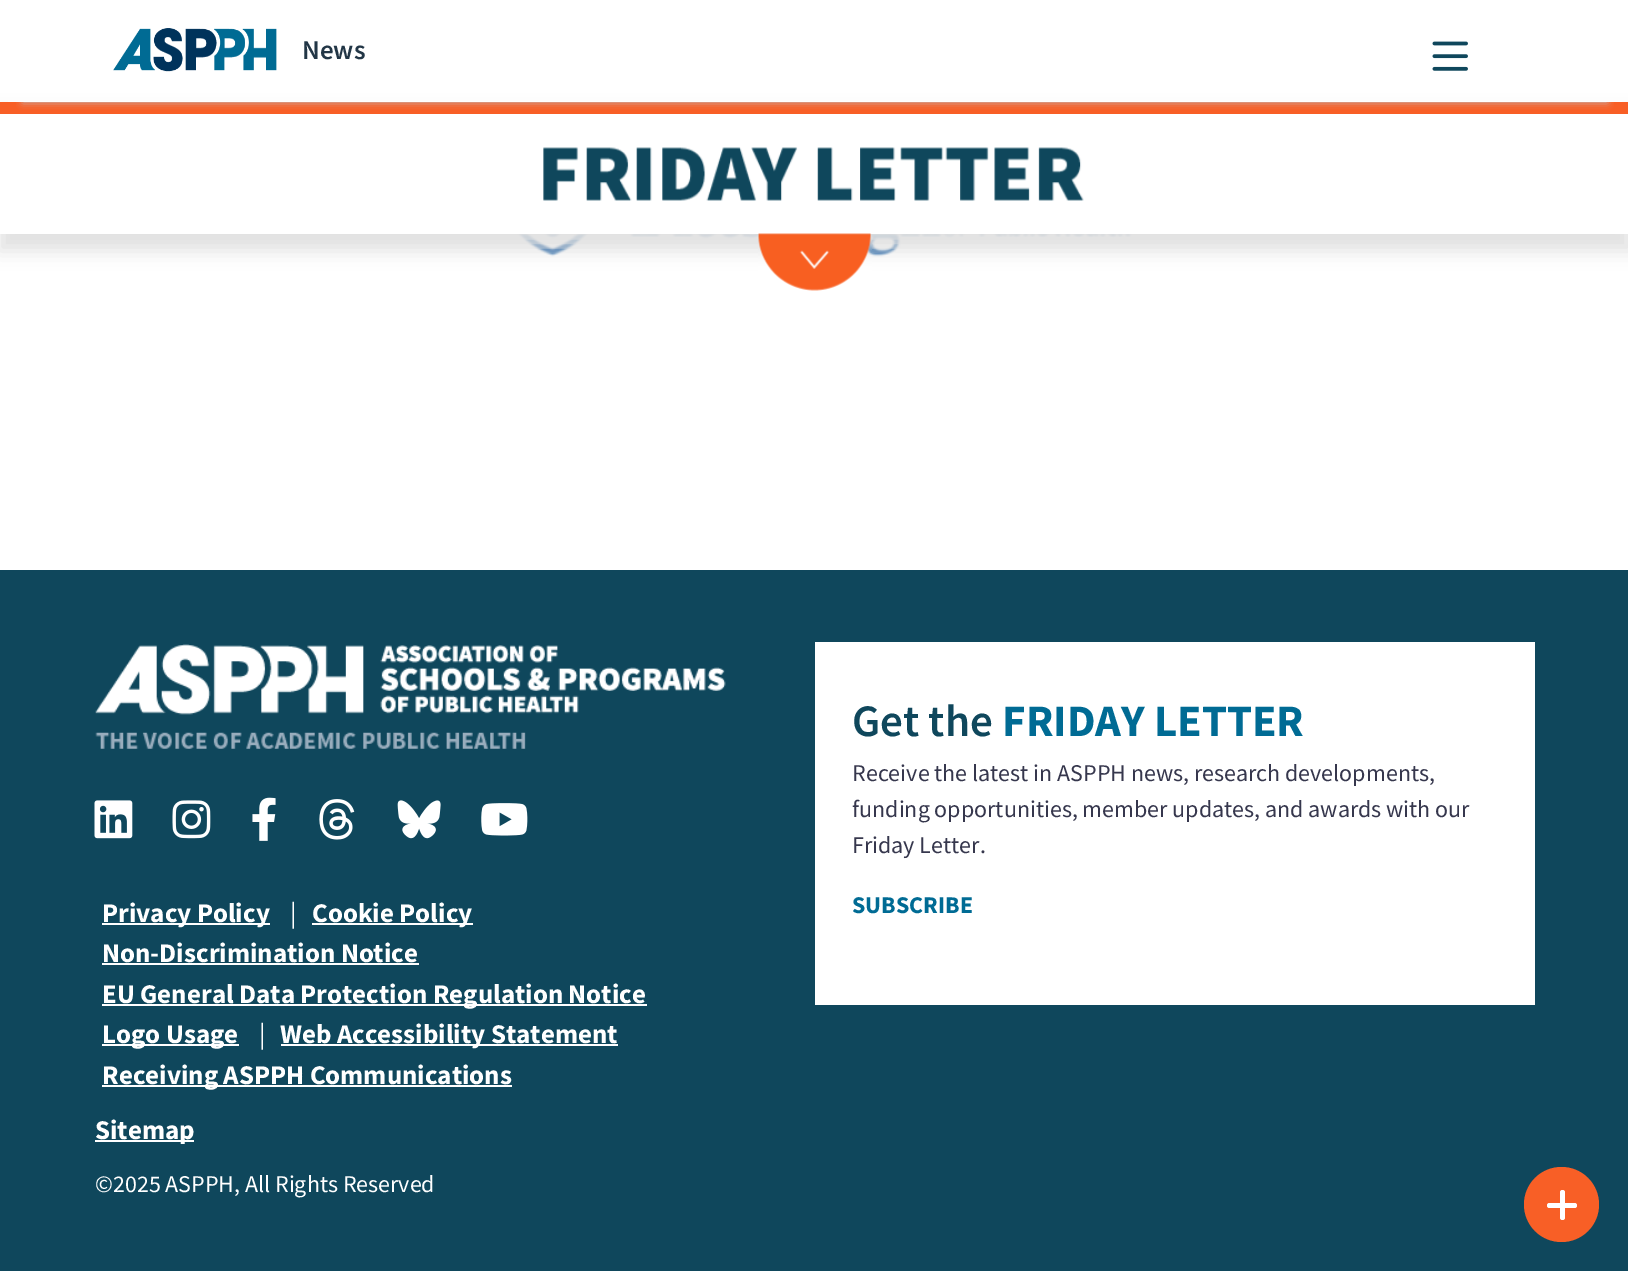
%!PS
<< /PageSize [1628 1271] /PageUsesTransparency true >> setpagedevice
/alpha { dup .setfillconstantalpha .setstrokeconstantalpha } def
/roundrect { 5 dict begin { /r /h /w /y /x } { exch def } forall
  x r add y moveto x w add y 2 copy h add r arct x w add y h add x 1 index r arct
  x y h add x y r arct x y 2 copy exch w add exch r arct closepath end } def
/shadow { 12 dict begin { /a /b /q /h /w /y /x } { exch def } forall gsave /was 0 def
  9 -2 -9 { dup b mul 4 div /e exch def 1 sub .425 mul 2.718 exch exp 1 add a .99 .min exch div /now exch def
    1 1 now sub 1 was sub div sub alpha /was now def
    w h .min e 2 mul add 0 gt { x e sub y e sub w e 2 mul add h e 2 mul add
      q e add b .6 mul add w h .min 2 div e add .min 0 .max roundrect fill } if } for grestore end } def
/picture { 5 dict begin { /h /w /y /x /name } { exch def } forall
  gsave x y translate w h scale
  w h 8 [w 0 0 h 0 0] name (r) file false 3 colorimage grestore end } def
0 .pushpdf14devicefilter
0 1271 translate 1 -1 scale
4 setmiterlimit
1 setgray
0 0 1628 1271 rectfill
(img5.rgb) 496 234 636 23 picture
0.878 setgray
-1 113 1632 138 0 9 1 shadow
1 setgray
8 101 1614 1 rectfill
0 114 1628 120 rectfill
0.973 0.373 0.149 setrgbcolor
0 102 1628 12 rectfill
gsave
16 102 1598 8 rectclip
0.737 0.776 0.808 setrgbcolor
23 45 1584 57 0 4 1 shadow
grestore
(img1.rgb) 113 28 164 44 picture
/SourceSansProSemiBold-SemiBold [27 0 0 -27 0 0] selectfont
0.133 0.212 0.275 setrgbcolor
302 59 moveto (News) show
(img2.rgb) 1432 41 36 30 picture
(img3.rgb) 543 147 541 54 picture
(img4.rgb) 758 233 114 58 picture
0.059 0.278 0.361 setrgbcolor
0 570 1628 701 rectfill
1 setgray
815 642 720 363 rectfill
/SourceSansProSemiBold-SemiBold [45 0 0 -45 0 0] selectfont
0.059 0.278 0.361 setrgbcolor
852 736 moveto (Get the) show
/SourceSansPro-Bold [45 0 0 -45 0 0] selectfont
0 0.42 0.58 setrgbcolor
1002 736 moveto (FRIDAY LETTER) show
/SourceSansPro-Regular [24 0 0 -24 0 0] selectfont
0.212 0.216 0.302 setrgbcolor
852 781 moveto (Receive the latest in ASPPH news, research developments,) show
852 817 moveto (funding opportunities, member updates, and awards with our) show
852 853 moveto (Friday Letter.) show
/SourceSansPro-Bold [24 0 0 -24 0 0] selectfont
0 0.42 0.58 setrgbcolor
852 913 moveto (SUBSCRIBE) show
(img6.rgb) 95 644 631 105 picture
(img7.rgb) 94 800 39 39 picture
(img8.rgb) 172 800 39 39 picture
(img9.rgb) 252 797 24 44 picture
(img10.rgb) 319 799 36 41 picture
(img11.rgb) 397 800 44 39 picture
(img12.rgb) 481 803 47 33 picture
1 setgray
102 923 168 2 rectfill
/SourceSansPro-Bold [27 0 0 -27 0 0] selectfont
102 922 moveto (Privacy Policy) show
/SourceSansPro-Regular [27 0 0 -27 0 0] selectfont
290 922 moveto (|) show
312 923 161 2 rectfill
/SourceSansPro-Bold [27 0 0 -27 0 0] selectfont
312 922 moveto (Cookie Policy) show
102 962 moveto (Non-Discrimination Notice) show
102 963 317 2 rectfill
102 1004 545 2 rectfill
102 1003 moveto (EU General Data Protection Regulation Notice) show
102 1044 137 2 rectfill
102 1043 moveto (Logo Usage) show
/SourceSansPro-Regular [27 0 0 -27 0 0] selectfont
259 1043 moveto (|) show
281 1044 337 2 rectfill
/SourceSansPro-Bold [27 0 0 -27 0 0] selectfont
280 1043 moveto (Web Accessibility Statement) show
102 1085 410 2 rectfill
102 1084 moveto (Receiving ASPPH Communications) show
95 1140 99 2 rectfill
95 1139 moveto (Sitemap) show
/SourceSansPro-Regular [24 0 0 -24 0 0] selectfont
95 1192 moveto (©2025 ASPPH, All Rights Reserved) show
0.973 0.373 0.149 setrgbcolor
newpath 1561.5 1204.5 37.5 0 360 arc closepath fill
1 setgray
1560 1190 5 30 2.5 roundrect fill
1547 1203 30 5 2.5 roundrect fill
.poppdf14devicefilter showpage
